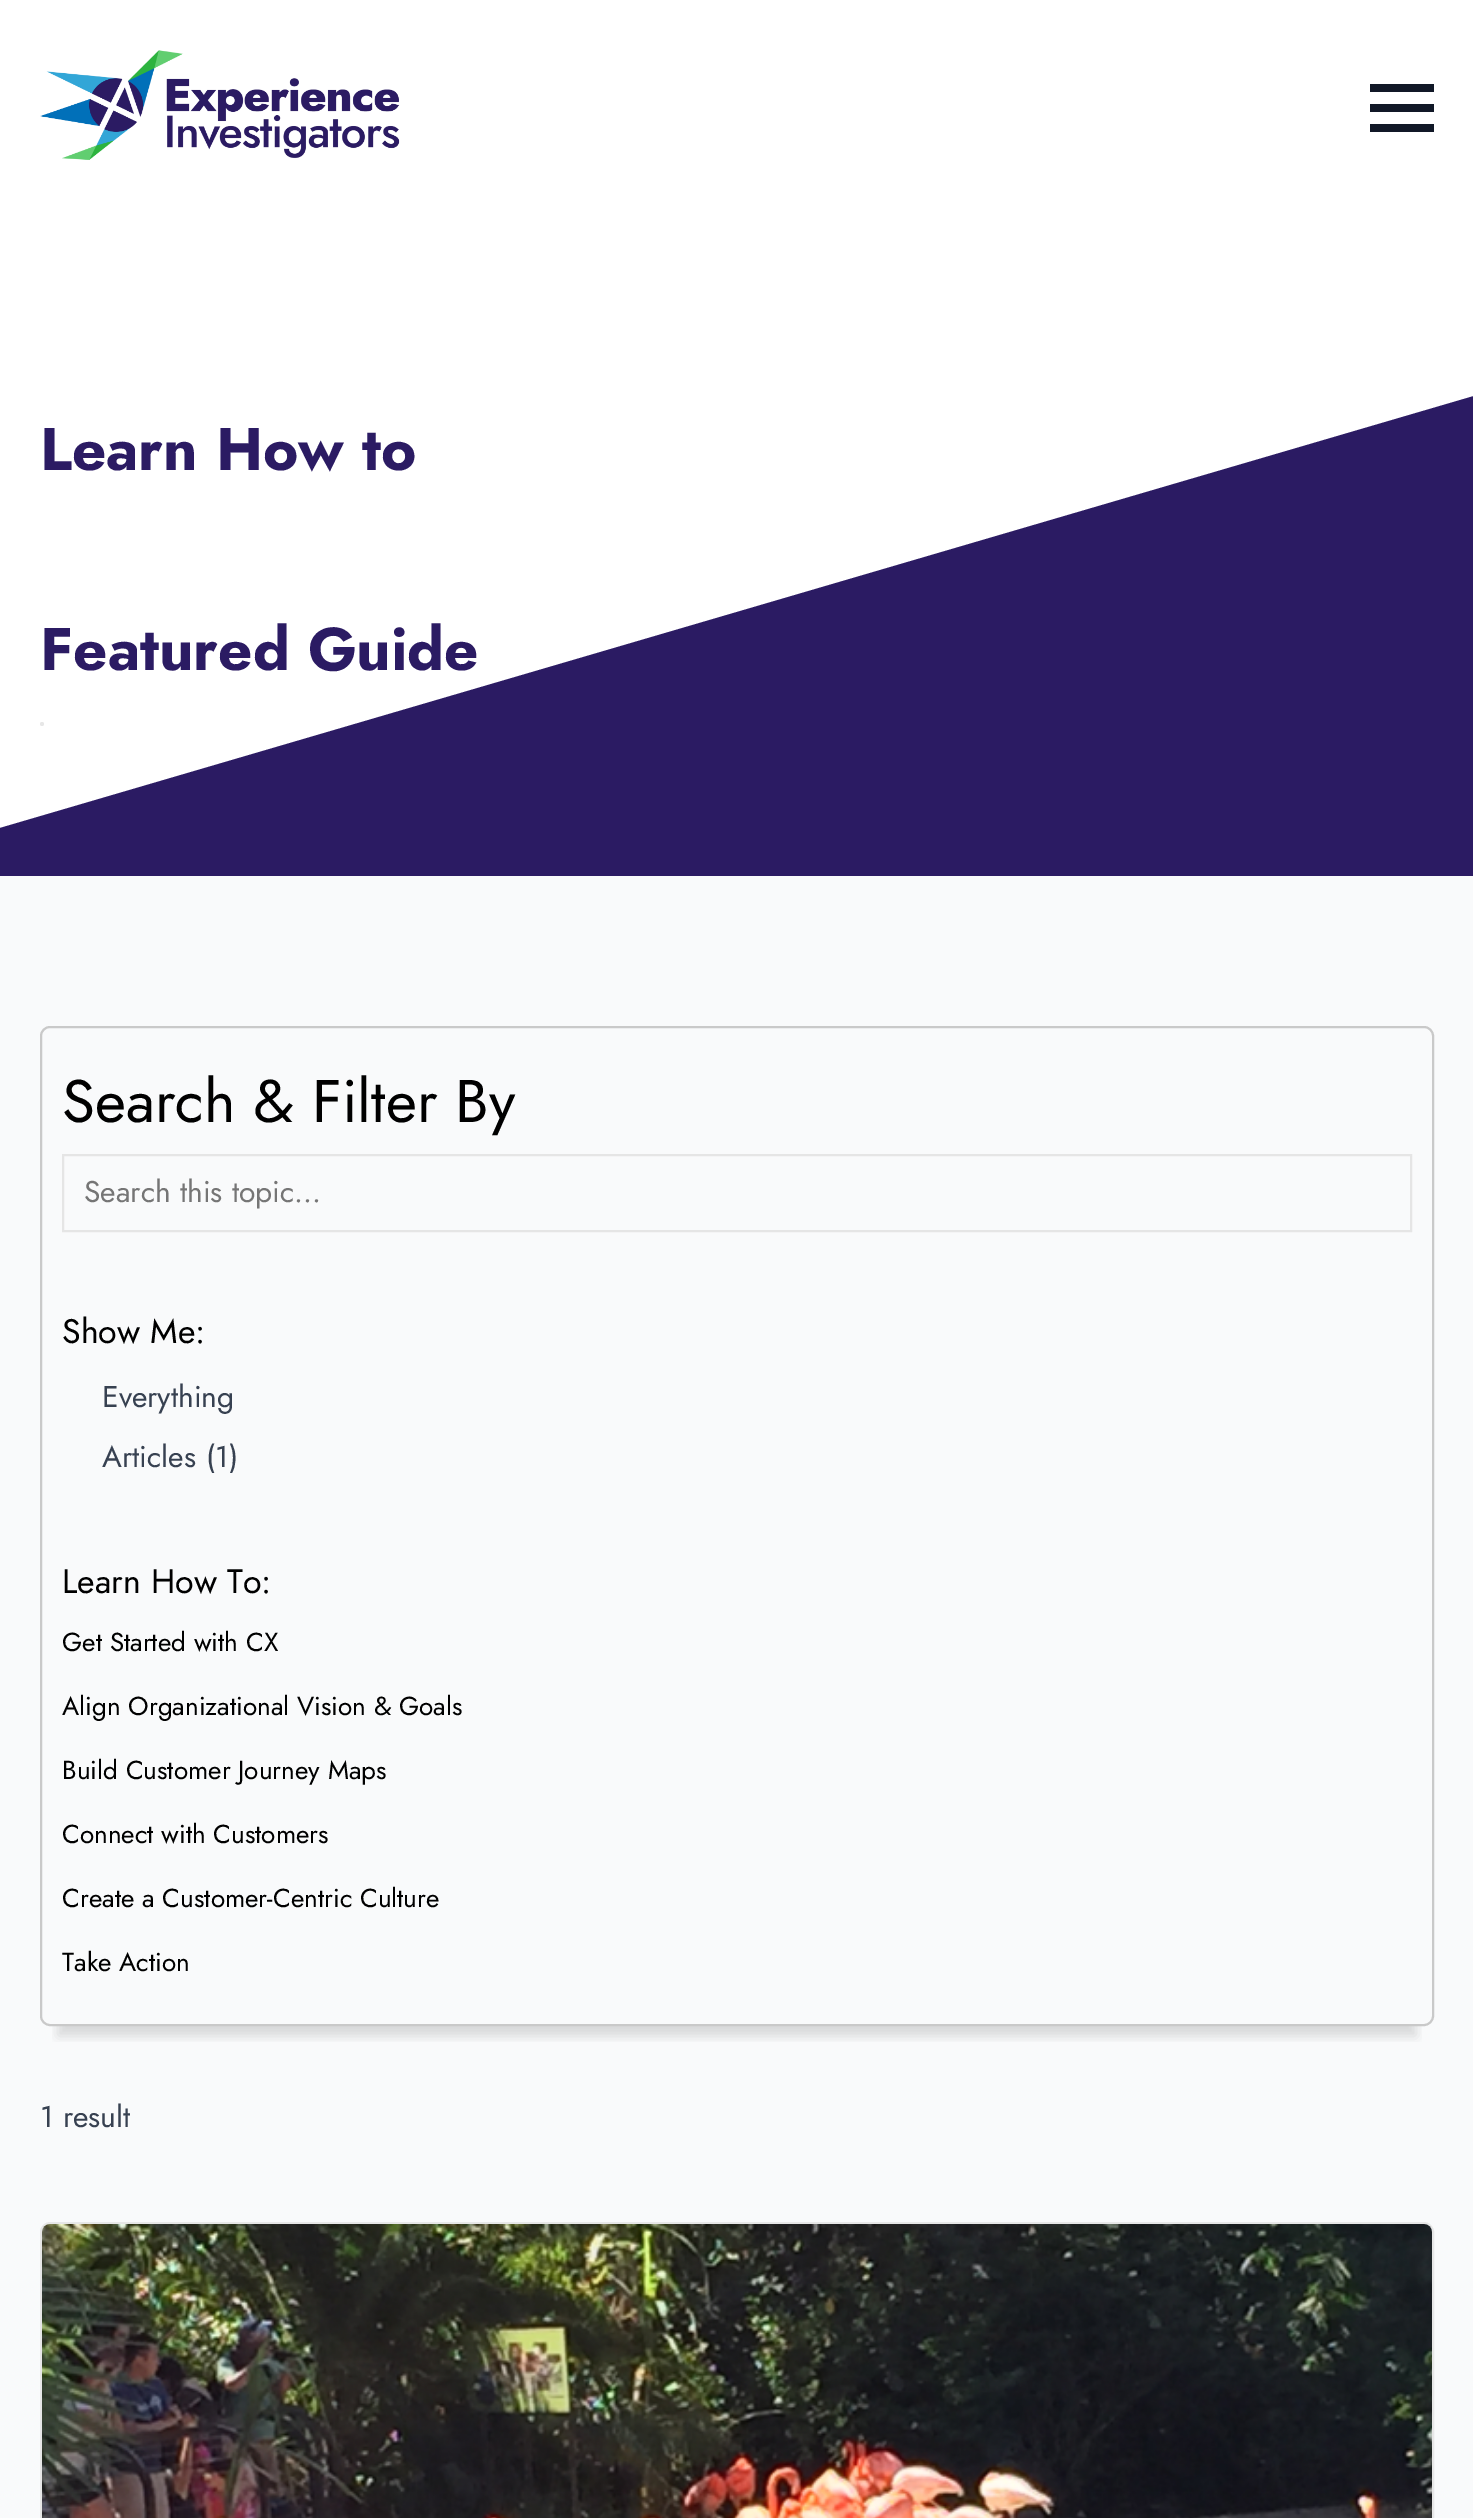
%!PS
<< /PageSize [1473 2518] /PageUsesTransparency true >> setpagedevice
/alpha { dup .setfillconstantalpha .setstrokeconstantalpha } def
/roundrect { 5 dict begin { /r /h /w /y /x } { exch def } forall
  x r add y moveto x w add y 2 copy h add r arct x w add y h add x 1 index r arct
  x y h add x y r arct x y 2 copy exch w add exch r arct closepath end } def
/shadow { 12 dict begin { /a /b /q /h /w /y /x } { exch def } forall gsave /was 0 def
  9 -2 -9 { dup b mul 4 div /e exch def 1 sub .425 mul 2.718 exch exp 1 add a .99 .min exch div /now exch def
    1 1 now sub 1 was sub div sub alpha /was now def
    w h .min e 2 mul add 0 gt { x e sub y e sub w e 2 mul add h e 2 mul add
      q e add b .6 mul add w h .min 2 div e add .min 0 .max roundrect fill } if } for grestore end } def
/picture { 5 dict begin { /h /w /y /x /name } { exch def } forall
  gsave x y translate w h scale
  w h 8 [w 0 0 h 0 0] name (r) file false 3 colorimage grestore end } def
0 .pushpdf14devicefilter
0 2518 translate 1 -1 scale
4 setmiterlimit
0.976 0.98 0.984 setrgbcolor
0 0 1473 2518 rectfill
1 setgray
0 0 1473 828 rectfill
(img1.rgb) 40 50 360 110 picture
0.067 0.094 0.153 setrgbcolor
1370 104 64 8 rectfill
1370 84 64 8 rectfill
1370 124 64 8 rectfill
0.169 0.106 0.388 setrgbcolor
newpath 0 828 moveto 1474 396 lineto 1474 876 lineto 0 876 lineto closepath fill
/Jost-Bold [60 0 0 -60 0 0] selectfont
40 470 moveto (Learn How to) show
40 670 moveto (Featured Guide) show
0.906 setgray
newpath 42 724 2 0 360 arc closepath fill
gsave
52 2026 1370 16 rectclip
0 setgray
58 1072 1358 964 0 6 0.14 shadow
grestore
0.788 setgray
2 setlinewidth
41 1027 1392 998 9 roundrect stroke
/Jost-Regular [60 0 0 -60 0 0] selectfont
0 setgray
62 1122 moveto (Search & Filter By) show
0.898 setgray
63 1155 1348 76 rectstroke
/Jost-Regular [30 0 0 -30 0 0] selectfont
0.459 setgray
84 1202 moveto (Search this topic...) show
/Jost-Regular [34 0 0 -34 0 0] selectfont
0 setgray
62 1343 moveto (Show Me:) show
/Jost-Regular [30 0 0 -30 0 0] selectfont
0.216 0.255 0.318 setrgbcolor
102 1407 moveto (Everything) show
102 1467 moveto (Articles) show
206 1467 moveto (\(1\)) show
/Jost-Regular [34 0 0 -34 0 0] selectfont
0 setgray
62 1593 moveto (Learn How To:) show
/Jost-Regular [26 0 0 -26 0 0] selectfont
62 1651 moveto (Get Started with CX) show
62 1715 moveto (Align Organizational Vision & Goals) show
62 1779 moveto (Build Customer Journey Maps) show
62 1843 moveto (Connect with Customers) show
62 1907 moveto (Create a Customer-Centric Culture) show
62 1971 moveto (Take Action) show
/Jost-Regular [30 0 0 -30 0 0] selectfont
0.216 0.255 0.318 setrgbcolor
40 2127 moveto (1 result) show
1 setgray
40 2222 1394 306 10 roundrect fill
0.38 alpha
0.753 0.757 0.757 setrgbcolor
41 2223 1392 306 9 roundrect stroke
1 alpha
(img2.rgb) 42 2224 1390 294 picture
.poppdf14devicefilter showpage
